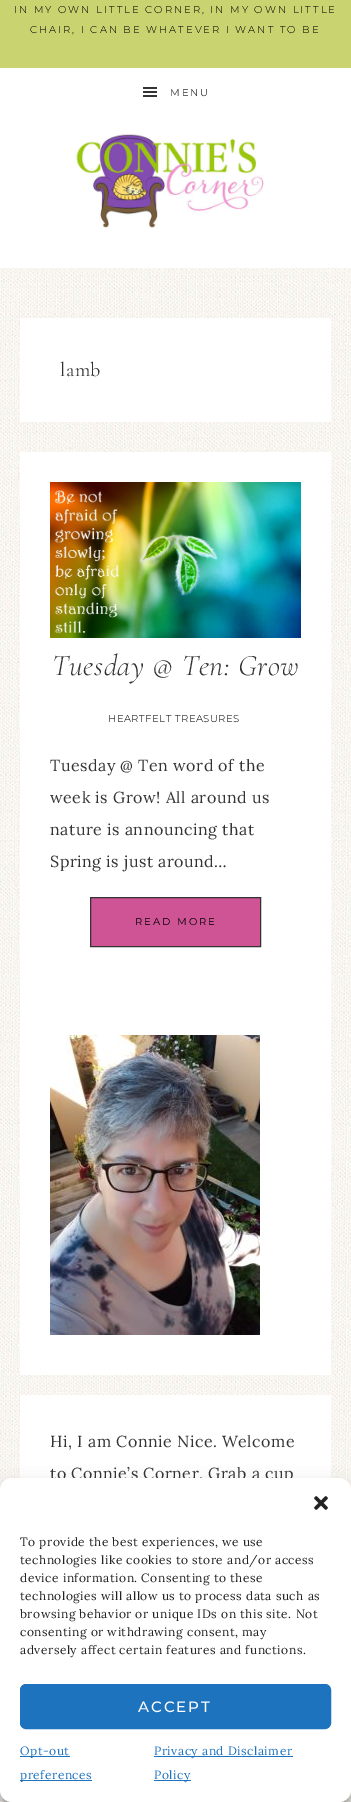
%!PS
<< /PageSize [351 1802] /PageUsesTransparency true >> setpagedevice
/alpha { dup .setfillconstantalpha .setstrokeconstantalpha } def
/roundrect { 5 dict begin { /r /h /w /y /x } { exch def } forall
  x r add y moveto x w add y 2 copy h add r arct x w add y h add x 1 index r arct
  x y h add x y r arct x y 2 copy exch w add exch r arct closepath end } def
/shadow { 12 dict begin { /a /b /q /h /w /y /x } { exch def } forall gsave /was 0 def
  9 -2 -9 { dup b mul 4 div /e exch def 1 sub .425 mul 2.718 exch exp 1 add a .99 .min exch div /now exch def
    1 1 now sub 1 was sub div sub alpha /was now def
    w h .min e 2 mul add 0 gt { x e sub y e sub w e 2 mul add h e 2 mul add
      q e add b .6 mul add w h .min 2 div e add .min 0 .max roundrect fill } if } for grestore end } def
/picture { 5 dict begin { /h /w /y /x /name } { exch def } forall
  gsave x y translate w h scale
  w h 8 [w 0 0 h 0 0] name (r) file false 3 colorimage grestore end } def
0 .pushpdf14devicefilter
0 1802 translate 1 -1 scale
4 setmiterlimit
1 setgray
0 0 351 1802 rectfill
(img1.rgb) 0 268 351 1534 picture
0.788 0.827 0.439 setrgbcolor
0 0 351 68 rectfill
/Montserrat-Light [10 0 0 -10 0 0] selectfont
0 setgray
14 13 moveto 2 0 (IN MY OWN LITTLE CORNER, IN MY OWN LITTLE) ashow
30 33 moveto 2 0 (CHAIR, I CAN BE WHATEVER I WANT TO BE) ashow
(img2.rgb) 143 87 14 10 picture
/Montserrat-Regular [10 0 0 -10 0 0] selectfont
0.2 setgray
170 96 moveto 2 0 (MENU) ashow
(img3.rgb) 74 133 191 95 picture
1 setgray
20 318 311 104 rectfill
/CormorantGaramond-Regular [20 0 0 -20 0 0] selectfont
0.2 setgray
60 376 moveto 0.5 0 (lamb) ashow
1 setgray
20 452 311 923 rectfill
(img4.rgb) 50 482 251 156 picture
/CormorantGaramond-LightItalic [30 0 0 -30 0 0] selectfont
0.2 setgray
52 675 moveto 0.5 0 (Tuesday @ Ten: Grow) ashow
/Montserrat-Light [10 0 0 -10 0 0] selectfont
0 setgray
108 722 moveto 0.5 0 (HEARTFELT TREASURES) ashow
/Lora-Regular [16 0 0 -16 0 0] selectfont
0.2 setgray
50 771 moveto 0.5 0 (Tuesday @ Ten word of the) ashow
50 803 moveto 0.5 0 (week is Grow! All around us) ashow
50 835 moveto 0.5 0 (nature is announcing that) ashow
50 867 moveto 0.5 0 (Spring is just around…) ashow
0.808 0.329 0.584 setrgbcolor
newpath 90.5 897.5 moveto 260.5 897.5 lineto 260.5 946.5 lineto 90.5 946.5 lineto closepath gsave fill grestore
0.2 setgray
stroke
/Montserrat-Regular [10 0 0 -10 0 0] selectfont
0 setgray
135 925 moveto 2 0 (READ MORE) ashow
(img5.rgb) 50 1035 210 300 picture
1 setgray
20 1395 311 83 rectfill
/Lora-Regular [16 0 0 -16 0 0] selectfont
0.2 setgray
50 1447 moveto 0.5 0 (Hi, I am Connie Nice. Welcome) ashow
50 1479 moveto 0.5 0 (to Connie’s Corner. Grab a cup) ashow
0 setgray
0 1484 351 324 12 3 0.23 shadow
0 1488 351 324 12 10 0.19 shadow
1 setgray
0 1478 351 324 12 roundrect fill
(img6.rgb) 314 1496 14 14 picture
/Lora-Regular [12 0 0 -12 0 0] selectfont
0.133 setgray
20 1546 moveto 0.5 0 (To provide the best experiences, we use) ashow
20 1564 moveto 0.5 0 (technologies like cookies to store and/or access) ashow
20 1582 moveto 0.5 0 (device information. Consenting to these) ashow
20 1600 moveto 0.5 0 (technologies will allow us to process data such as) ashow
20 1618 moveto 0.5 0 (browsing behavior or unique IDs on this site. Not) ashow
20 1636 moveto 0.5 0 (consenting or withdrawing consent, may) ashow
20 1654 moveto 0.5 0 (adversely affect certain features and functions.) ashow
0.118 0.451 0.745 setrgbcolor
20.5 1684.5 310 44 5.5 roundrect gsave fill grestore
stroke
/Montserrat-Medium [15 0 0 -15 0 0] selectfont
1 setgray
138 1712 moveto 2 0 (ACCEPT) ashow
0.118 0.451 0.745 setrgbcolor
20 1756 50 1 rectfill
/Lora-Regular [12 0 0 -12 0 0] selectfont
20 1755 moveto 0.5 0 (Opt-out) ashow
20 1780 72 1 rectfill
20 1779 moveto 0.5 0 (preferences) ashow
154 1756 139 1 rectfill
154 1755 moveto 0.5 0 (Privacy and Disclaimer) ashow
154 1780 37 1 rectfill
154 1779 moveto 0.5 0 (Policy) ashow
.poppdf14devicefilter showpage
